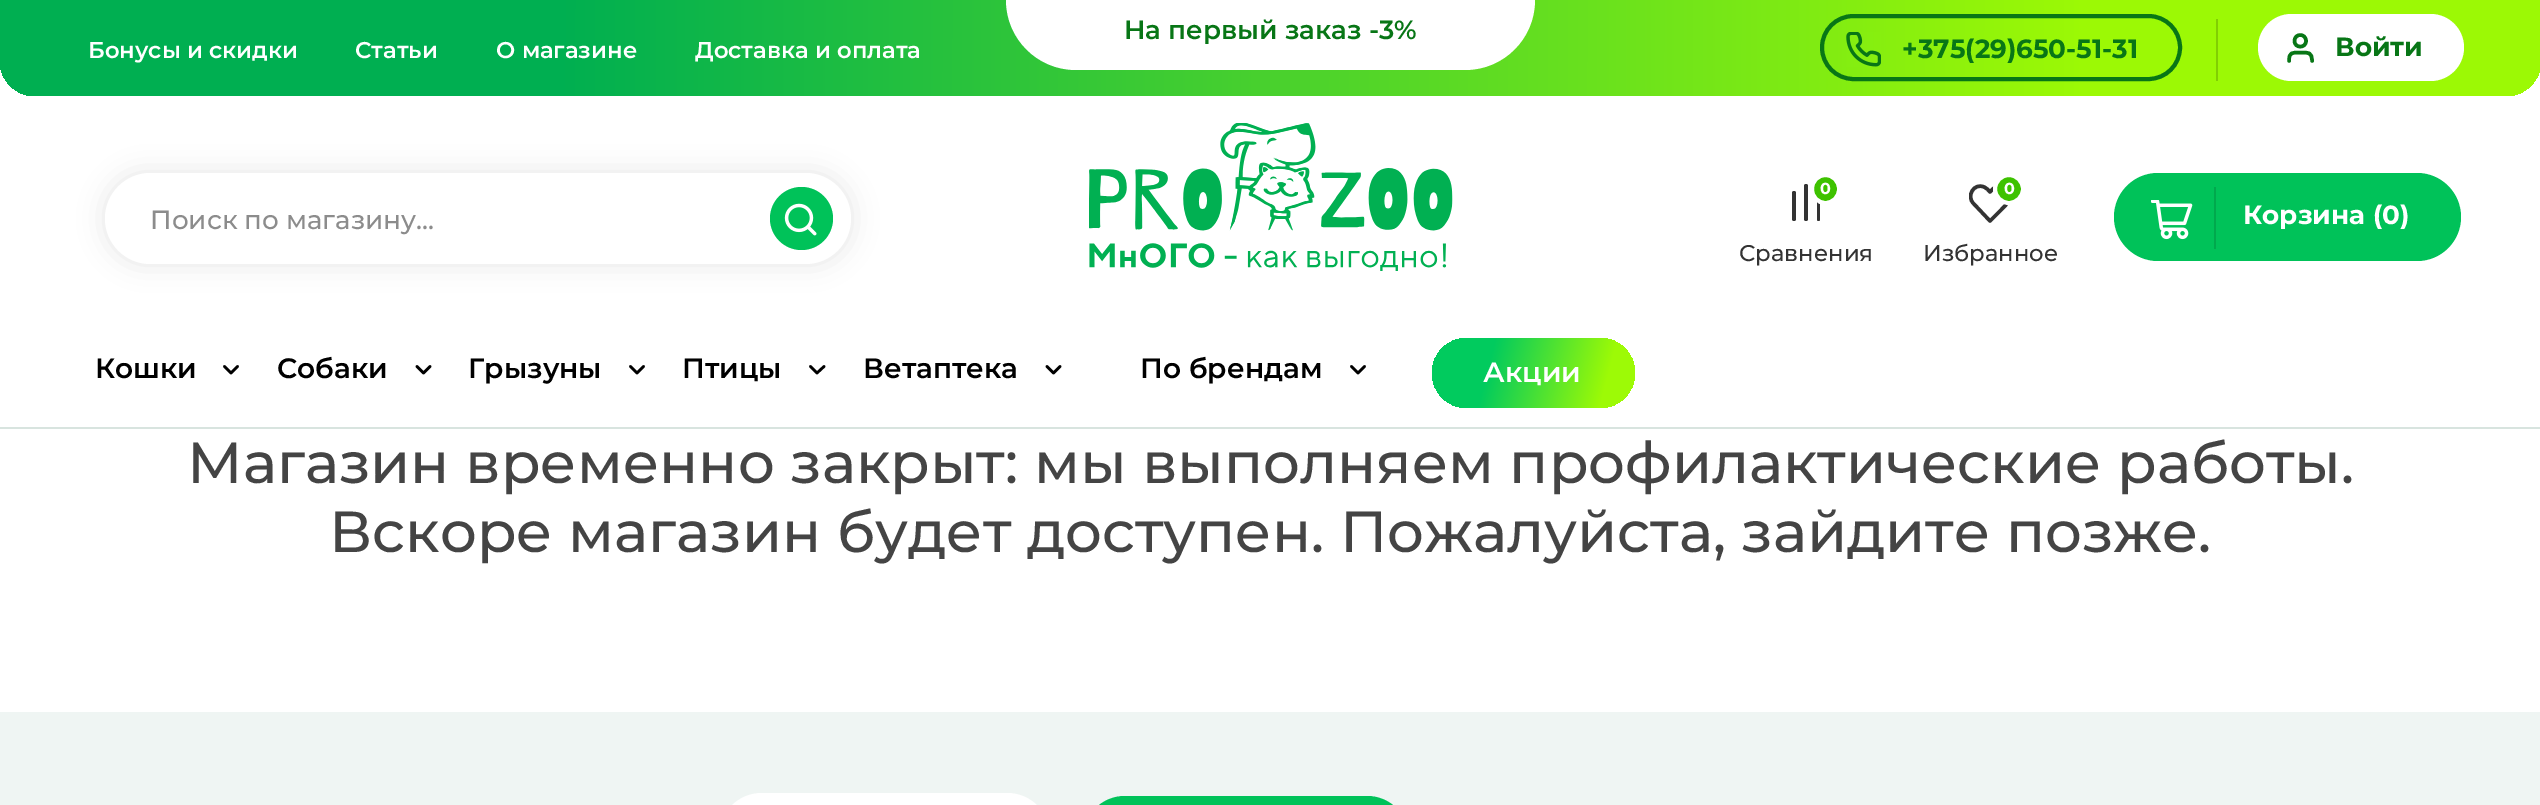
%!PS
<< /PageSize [2540 805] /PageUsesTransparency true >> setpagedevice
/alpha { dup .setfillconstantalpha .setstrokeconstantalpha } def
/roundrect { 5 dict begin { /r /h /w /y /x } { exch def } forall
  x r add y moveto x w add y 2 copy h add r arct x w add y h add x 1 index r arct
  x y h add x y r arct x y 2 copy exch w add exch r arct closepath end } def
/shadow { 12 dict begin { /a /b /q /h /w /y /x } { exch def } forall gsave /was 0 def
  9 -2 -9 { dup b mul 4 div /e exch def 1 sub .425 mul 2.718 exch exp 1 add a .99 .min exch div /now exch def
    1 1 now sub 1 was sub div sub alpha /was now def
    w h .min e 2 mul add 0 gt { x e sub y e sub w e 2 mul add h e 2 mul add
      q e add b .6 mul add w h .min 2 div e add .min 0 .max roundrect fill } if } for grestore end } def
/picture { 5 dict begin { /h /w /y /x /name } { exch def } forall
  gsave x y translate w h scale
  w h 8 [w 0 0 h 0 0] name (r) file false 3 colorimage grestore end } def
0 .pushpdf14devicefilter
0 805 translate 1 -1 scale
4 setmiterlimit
1 setgray
0 0 2540 805 rectfill
gsave newpath 0 0 moveto 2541 0 lineto 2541 61 lineto 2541 80.5 2525.5 96 2506 96 curveto 35 96 lineto 15.5 96 0 80.5 0 61 curveto closepath clip newpath
<< /ShadingType 2 /ColorSpace /DeviceRGB /Coords [-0.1 45 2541 51] /Extend [true true] /Function << /FunctionType 3 /Domain [0 1] /Functions [<< /FunctionType 2 /Domain [0 1] /C0 [0 0.686 0.318] /C1 [0 0.686 0.318] /N 1 >> << /FunctionType 2 /Domain [0 1] /C0 [0 0.686 0.318] /C1 [0.612 0.976 0.02] /N 1 >> << /FunctionType 2 /Domain [0 1] /C0 [0.612 0.976 0.02] /C1 [0.612 0.976 0.02] /N 1 >>] /Bounds [0.22 0.82] /Encode [0 1 0 1 0 1] >> >> shfill grestore
1006 -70 529 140 70 roundrect fill
/Montserrat-SemiBold [26.25 0 0 -26.25 0 0] selectfont
0.031 0.463 0.086 setrgbcolor
1124 39 moveto (На первый заказ -3%) show
/Montserrat-SemiBold [22.75 0 0 -22.75 0 0] selectfont
1 setgray
88 58 moveto (Бонусы и скидки) show
355 58 moveto (Статьи) show
496 58 moveto (О магазине) show
695 58 moveto (Доставка и оплата) show
(img1.rgb) 1846 32 35 35 picture
0.031 0.463 0.086 setrgbcolor
4 setlinewidth
1822 16 358 63 31.5 roundrect stroke
/Montserrat-Bold [26.25 0 0 -26.25 0 0] selectfont
1902 58 moveto (+375\(29\)650-51-31) show
0.506 0.812 0.012 setrgbcolor
2216 19 2 62 rectfill
1 setgray
2258 14 206 67 33.5 roundrect fill
0.031 0.463 0.086 setrgbcolor
3.5 setlinewidth
1 setlinecap
1 setlinejoin
newpath 2312 61 moveto 2312 52 2308.5 52.5 2300.5 52.5 curveto 2292 52.5 2289 52 2289 61 curveto 2306 41 moveto 2306 48.5 2294.5 48.5 2294.5 41 curveto 2294.5 33 2306 33 2306 41 curveto closepath stroke
2335 56 moveto (Войти) show
0.847 0.894 0.875 setrgbcolor
0 427 2540 2 rectfill
0 setgray
105 173 746 91 45.5 13 0.1 shadow
1 setgray
105 173 746 91 45.5 roundrect fill
/Montserrat-Medium [26.25 0 0 -26.25 0 0] selectfont
0.549 setgray
150 229 moveto (Поиск по магазину...) show
0 0.761 0.349 setrgbcolor
newpath 801.5 218.5 31.5 0 360 arc closepath fill
(img2.rgb) 784 203 33 33 picture
(img3.rgb) 1089 123 364 148 picture
0.2 setgray
1792 191 4 30 2 roundrect fill
1804 184 4 37 2 roundrect fill
1817 198 3 23 1.5 roundrect fill
0.243 0.761 0 setrgbcolor
1812 175 27 28 13.5 roundrect gsave fill grestore
1 setgray
4 setlinewidth
0 setlinecap
0 setlinejoin
stroke
/Montserrat-Bold [16 0 0 -16 0 0] selectfont
1820 194 moveto (0) show
/Montserrat-Medium [22.75 0 0 -22.75 0 0] selectfont
0.2 setgray
1739 261 moveto (Сравнения) show
gsave
1969 184 44 40 rectclip
3.5 setlinewidth
1 setlinecap
1 setlinejoin
newpath 1973.5 203.5 moveto 1990 221 lineto 2001.5 209.5 lineto 2004 206.5 2007.5 204 2009 200.5 curveto 2012 192.5 2005 184 1997 186.5 curveto 1994 187.5 1992 189.5 1990 192 curveto 1988.5 190 1986.5 188 1984 187 curveto 1974 182.5 1966 196 1973.5 203.5 curveto closepath stroke
grestore
0.243 0.761 0 setrgbcolor
newpath 2009 189 14 0 360 arc closepath gsave fill grestore
1 setgray
stroke
/Montserrat-Bold [16 0 0 -16 0 0] selectfont
2004 194 moveto (0) show
/Montserrat-Medium [22.75 0 0 -22.75 0 0] selectfont
0.2 setgray
1923 261 moveto (Избранное) show
0 0.761 0.349 setrgbcolor
2114 173 347 88 44 roundrect fill
(img4.rgb) 2151 200 42 40 picture
0 0.663 0.302 setrgbcolor
2214 187 2 62 rectfill
/Montserrat-Bold [26.25 0 0 -26.25 0 0] selectfont
1 setgray
2243 224 moveto (Корзина \(0\)) show
/Montserrat-SemiBold [28 0 0 -28 0 0] selectfont
0 setgray
95 378 moveto (Кошки) show
2.6 setlinewidth
1 setlinecap
1 setlinejoin
newpath 224.5 366.5 moveto 231 373 lineto 237.5 366.5 lineto stroke
277 378 moveto (Собаки) show
newpath 417 366.5 moveto 423.5 373 lineto 430 366.5 lineto stroke
468 378 moveto (Грызуны) show
newpath 630.5 366.5 moveto 637 373 lineto 643.5 366.5 lineto stroke
682 378 moveto (Птицы) show
newpath 810.5 366.5 moveto 817 373 lineto 824 366.5 lineto stroke
863 378 moveto (Ветаптека) show
newpath 1047 366.5 moveto 1053.5 373 lineto 1060 366.5 lineto stroke
1140 378 moveto (По брендам) show
newpath 1351.5 366.5 moveto 1358 373 lineto 1364.5 366.5 lineto stroke
gsave 1432 338 203 70 35 roundrect clip newpath
<< /ShadingType 2 /ColorSpace /DeviceRGB /Coords [1429 346 1637 400] /Extend [true true] /Function << /FunctionType 3 /Domain [0 1] /Functions [<< /FunctionType 2 /Domain [0 1] /C0 [0.004 0.796 0.369] /C1 [0.004 0.796 0.369] /N 1 >> << /FunctionType 2 /Domain [0 1] /C0 [0.004 0.796 0.369] /C1 [0.616 0.98 0.024] /N 1 >> << /FunctionType 2 /Domain [0 1] /C0 [0.616 0.98 0.024] /C1 [0.616 0.98 0.024] /N 1 >>] /Bounds [0.29 0.84] /Encode [0 1 0 1 0 1] >> >> shfill grestore
1 setgray
1483 382 moveto (Акции) show
/Montserrat-Medium [57.75 0 0 -57.75 0 0] selectfont
0.267 setgray
187 483 moveto (Магазин временно закрыт: мы выполняем профилактические работы.) show
329 552 moveto (Вскоре магазин будет доступен. Пожалуйста, зайдите позже.) show
0.937 0.961 0.953 setrgbcolor
0 712 2540 93 rectfill
1 setgray
719 793 331 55 43 roundrect fill
0 0.761 0.349 setrgbcolor
1083 796 326 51 42 roundrect fill
.poppdf14devicefilter showpage
